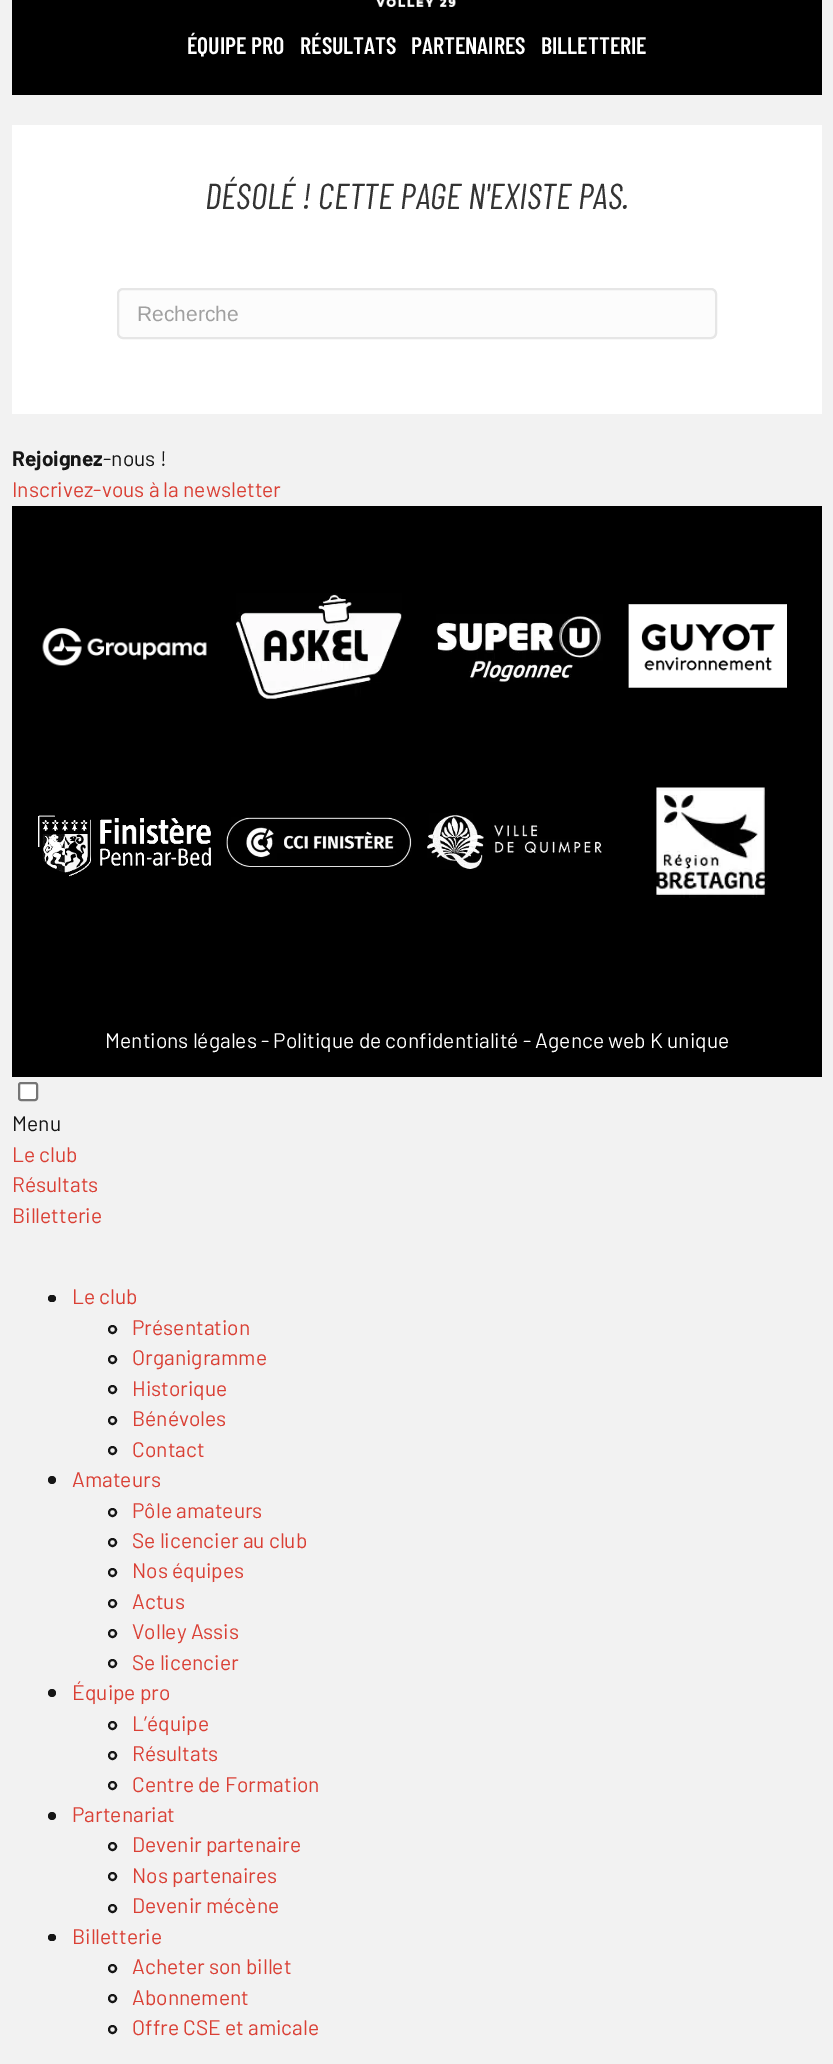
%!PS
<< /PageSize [833 2064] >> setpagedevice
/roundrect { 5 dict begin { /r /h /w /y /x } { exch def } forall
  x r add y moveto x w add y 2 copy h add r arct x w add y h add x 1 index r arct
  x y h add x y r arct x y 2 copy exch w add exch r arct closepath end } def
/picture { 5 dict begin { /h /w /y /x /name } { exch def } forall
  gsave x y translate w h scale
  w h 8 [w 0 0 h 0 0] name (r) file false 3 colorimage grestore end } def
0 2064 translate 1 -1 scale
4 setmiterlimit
0.949 setgray
0 0 833 2064 rectfill
0 setgray
12 0 810 95 rectfill
(img1.rgb) 376 0 80 7 picture
/BarlowCondensed-SemiBold [24 0 0 -24 0 0] selectfont
1 setgray
187 54 moveto (ÉQUIPE PRO) show
300 54 moveto (RÉSULTATS) show
411 54 moveto (PARTENAIRES) show
541 54 moveto (BILLETTERIE) show
12 125 810 289 rectfill
/BarlowCondensed-Italic [36 0 0 -36 0 0] selectfont
0.2 setgray
205 209 moveto (DÉSOLÉ ! CETTE PAGE N'EXISTE PAS.) show
0.988 setgray
118 289 598 49 5 roundrect gsave fill grestore
0.902 setgray
2 setlinewidth
stroke
/LiberationSans-Regular [21 0 0 -21 0 0] selectfont
0.627 setgray
137 321 moveto (Recherche) show
/Barlow-Bold [21 0 0 -21 0 0] selectfont
0.086 setgray
12 466 moveto (Rejoignez) show
/Barlow-Regular [21 0 0 -21 0 0] selectfont
103 466 moveto (-nous !) show
0.855 0.251 0.208 setrgbcolor
12 497 moveto (Inscrivez-vous à la newsletter) show
0 setgray
12 506 810 571 rectfill
(img2.rgb) 42 628 165 38 picture
(img3.rgb) 235 593 167 106 picture
(img4.rgb) 436 614 167 68 picture
(img5.rgb) 628 604 159 84 picture
(img6.rgb) 38 815 173 62 picture
(img7.rgb) 226 817 186 50 picture
(img8.rgb) 427 813 175 57 picture
(img9.rgb) 656 787 112 111 picture
1 setgray
105 1048 moveto (Mentions légales - Politique de confidentialité - Agence web K unique) show
19 1083 18 17 2 roundrect gsave fill grestore
0.463 setgray
stroke
0.086 setgray
12 1131 moveto (Menu) show
0.855 0.251 0.208 setrgbcolor
12 1162 moveto (Le club) show
12 1192 moveto (Résultats) show
12 1223 moveto (Billetterie) show
0.086 setgray
48 1295 8 7 3.5 roundrect fill
0.855 0.251 0.208 setrgbcolor
72 1304 moveto (Le club) show
0.086 setgray
newpath 112.5 1329.5 3.5 0 360 arc closepath stroke
0.855 0.251 0.208 setrgbcolor
132 1335 moveto (Présentation) show
0.086 setgray
newpath 112.5 1359.5 3.5 0 360 arc closepath stroke
0.855 0.251 0.208 setrgbcolor
132 1365 moveto (Organigramme) show
0.086 setgray
newpath 112.5 1389.5 3.5 0 360 arc closepath stroke
0.855 0.251 0.208 setrgbcolor
132 1396 moveto (Historique) show
0.086 setgray
newpath 112.5 1420.5 3.5 0 360 arc closepath stroke
0.855 0.251 0.208 setrgbcolor
132 1426 moveto (Bénévoles) show
0.086 setgray
newpath 112.5 1450.5 3.5 0 360 arc closepath stroke
0.855 0.251 0.208 setrgbcolor
132 1457 moveto (Contact) show
0.086 setgray
newpath 52 1480 4 0 360 arc closepath fill
0.855 0.251 0.208 setrgbcolor
72 1487 moveto (Amateurs) show
0.086 setgray
newpath 112.5 1512.5 3.5 0 360 arc closepath stroke
0.855 0.251 0.208 setrgbcolor
132 1518 moveto (Pôle amateurs) show
0.086 setgray
newpath 112.5 1542.5 3.5 0 360 arc closepath stroke
0.855 0.251 0.208 setrgbcolor
132 1548 moveto (Se licencier au club) show
0.086 setgray
newpath 112.5 1572.5 3.5 0 360 arc closepath stroke
0.855 0.251 0.208 setrgbcolor
132 1578 moveto (Nos équipes) show
0.086 setgray
newpath 112.5 1603.5 3.5 0 360 arc closepath stroke
0.855 0.251 0.208 setrgbcolor
132 1609 moveto (Actus) show
0.086 setgray
newpath 112.5 1633.5 3.5 0 360 arc closepath stroke
0.855 0.251 0.208 setrgbcolor
132 1639 moveto (Volley Assis) show
0.086 setgray
newpath 112.5 1663.5 3.5 0 360 arc closepath stroke
0.855 0.251 0.208 setrgbcolor
132 1670 moveto (Se licencier) show
0.086 setgray
newpath 52 1693 4 0 360 arc closepath fill
0.855 0.251 0.208 setrgbcolor
72 1700 moveto (Équipe pro) show
0.086 setgray
newpath 112.5 1725.5 3.5 0 360 arc closepath stroke
0.855 0.251 0.208 setrgbcolor
132 1731 moveto (L’équipe) show
0.086 setgray
newpath 112.5 1755.5 3.5 0 360 arc closepath stroke
0.855 0.251 0.208 setrgbcolor
132 1761 moveto (Résultats) show
0.086 setgray
newpath 112.5 1785.5 3.5 0 360 arc closepath stroke
0.855 0.251 0.208 setrgbcolor
132 1792 moveto (Centre de Formation) show
0.086 setgray
newpath 52 1816 4 0 360 arc closepath fill
0.855 0.251 0.208 setrgbcolor
72 1822 moveto (Partenariat) show
0.086 setgray
newpath 112.5 1846.5 3.5 0 360 arc closepath stroke
0.855 0.251 0.208 setrgbcolor
132 1852 moveto (Devenir partenaire) show
0.086 setgray
newpath 112.5 1876.5 3.5 0 360 arc closepath stroke
0.855 0.251 0.208 setrgbcolor
132 1883 moveto (Nos partenaires) show
0.086 setgray
newpath 112.5 1908.5 3.5 0 360 arc closepath stroke
0.855 0.251 0.208 setrgbcolor
132 1913 moveto (Devenir mécène) show
0.086 setgray
48 1934 8 7 3.5 roundrect fill
0.855 0.251 0.208 setrgbcolor
72 1944 moveto (Billetterie) show
0.086 setgray
newpath 112.5 1968.5 3.5 0 360 arc closepath stroke
0.855 0.251 0.208 setrgbcolor
132 1974 moveto (Acheter son billet) show
0.086 setgray
newpath 112.5 1998.5 3.5 0 360 arc closepath stroke
0.855 0.251 0.208 setrgbcolor
132 2005 moveto (Abonnement) show
0.086 setgray
newpath 112.5 2029.5 3.5 0 360 arc closepath stroke
0.855 0.251 0.208 setrgbcolor
132 2035 moveto (Offre CSE et amicale) show
showpage
